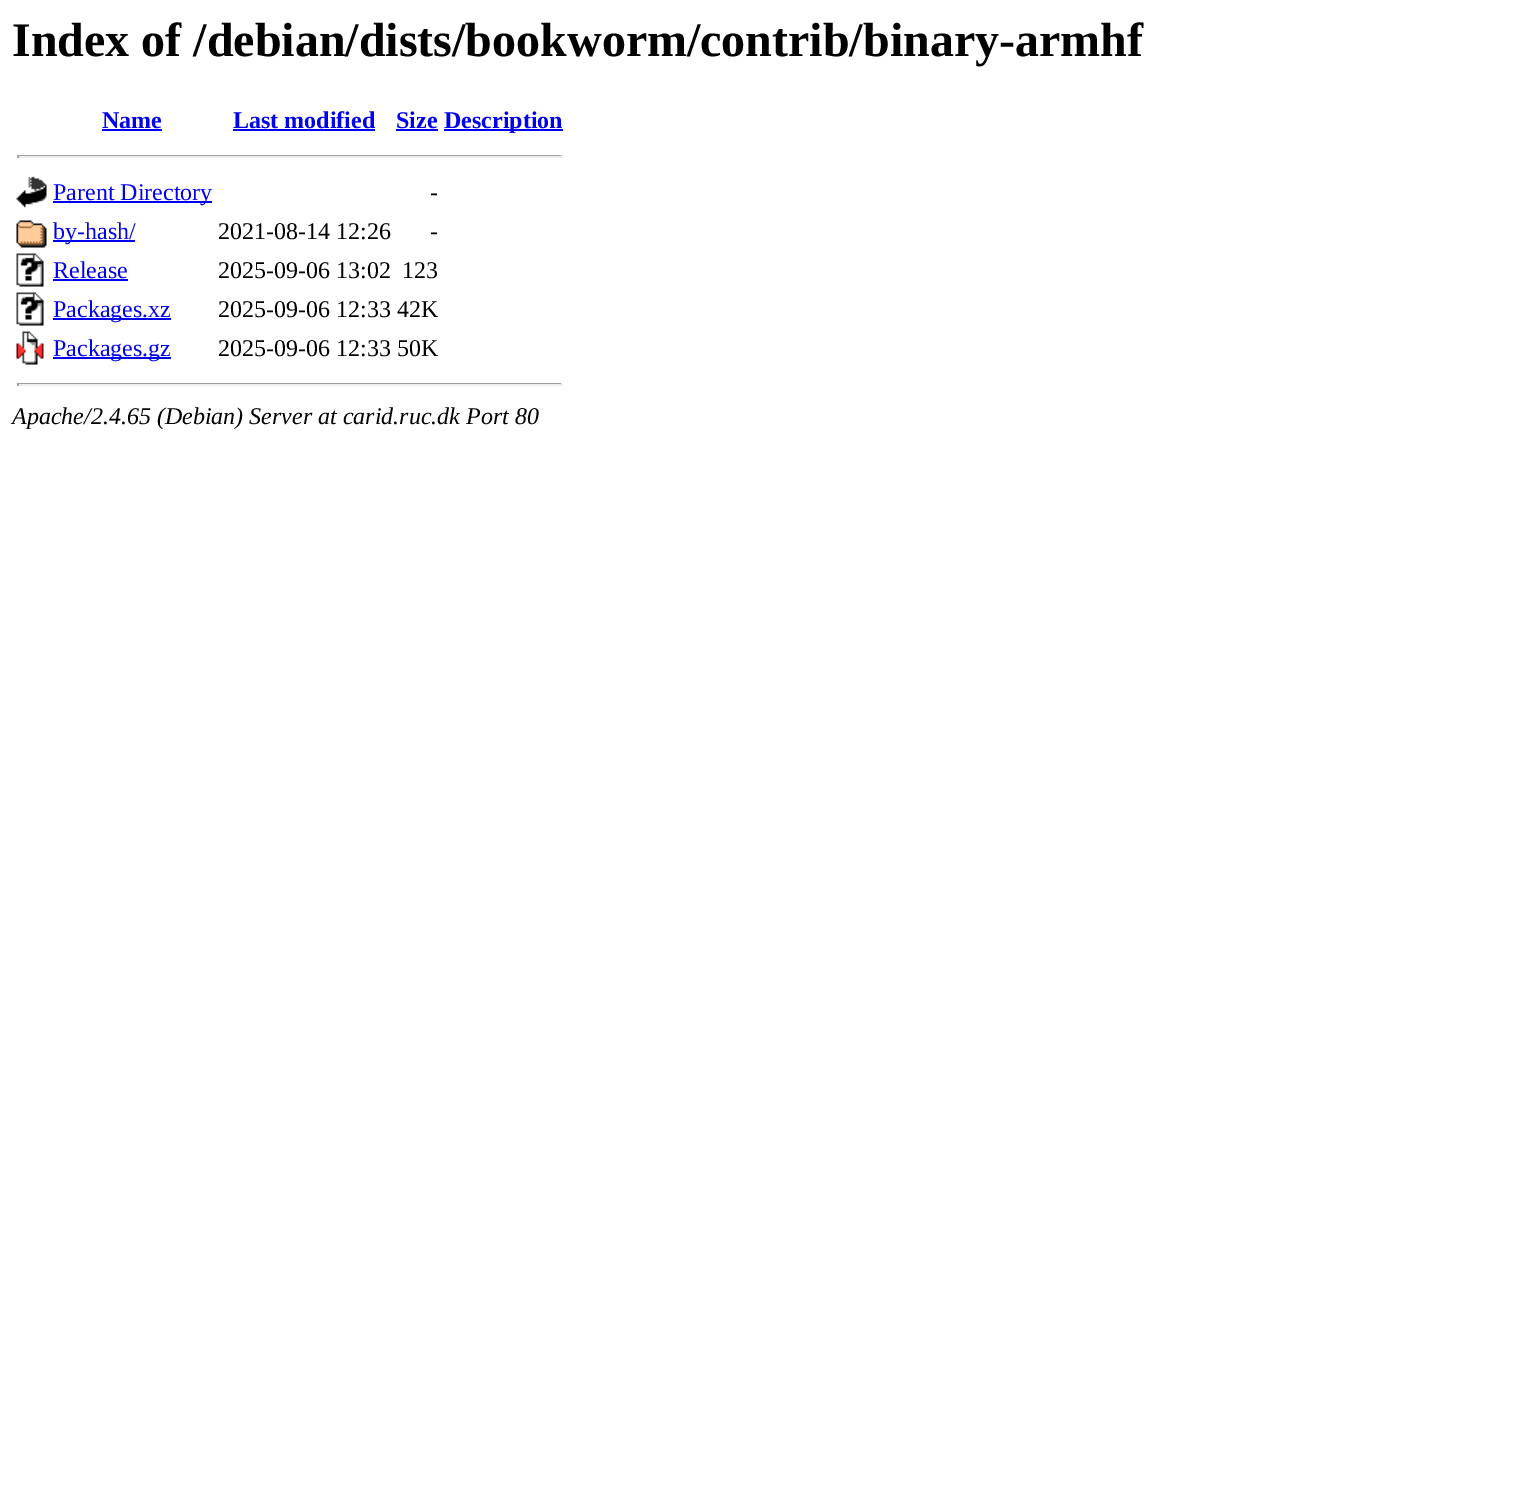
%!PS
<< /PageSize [1518 1495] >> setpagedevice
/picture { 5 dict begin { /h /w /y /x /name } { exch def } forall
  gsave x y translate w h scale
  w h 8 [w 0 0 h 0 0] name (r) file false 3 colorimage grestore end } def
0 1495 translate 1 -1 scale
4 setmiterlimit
1 setgray
0 0 1518 1495 rectfill
/LiberationSerif-Bold [48 0 0 -48 0 0] selectfont
0 setgray
12 56 moveto (Index of /debian/dists/bookworm/contrib/binary-armhf) show
/LiberationSerif-Bold [24 0 0 -24 0 0] selectfont
0 0 0.933 setrgbcolor
102 128 moveto (Name) show
102 129 60 2 rectfill
233 128 moveto (Last modified) show
233 129 142 2 rectfill
396 128 moveto (Size) show
396 129 42 2 rectfill
444 129 119 2 rectfill
444 128 moveto (Description) show
0.624 setgray
17 155 546 1 rectfill
0.933 setgray
561 155 2 3 rectfill
17 156 546 2 rectfill
0.624 setgray
17 155 2 3 rectfill
(img1.rgb) 16 176 31 32 picture
0 0 0.933 setrgbcolor
53 201 159 2 rectfill
/LiberationSerif-Regular [24 0 0 -24 0 0] selectfont
53 200 moveto (Parent Directory) show
0 setgray
430 200 moveto (-) show
(img2.rgb) 16 220 31 28 picture
0 0 0.933 setrgbcolor
53 240 82 2 rectfill
53 239 moveto (by-hash/) show
0 setgray
218 239 moveto (2021-08-14 12:26) show
430 239 moveto (-) show
(img3.rgb) 16 253 28 34 picture
0 0 0.933 setrgbcolor
53 278 moveto (Release) show
53 279 75 2 rectfill
0 setgray
218 278 moveto (2025-09-06 13:02) show
402 278 moveto (123) show
(img3.rgb) 16 292 28 34 picture
0 0 0.933 setrgbcolor
53 318 118 2 rectfill
53 317 moveto (Packages.xz) show
0 setgray
218 317 moveto (2025-09-06 12:33 42K) show
(img4.rgb) 16 331 28 34 picture
0 0 0.933 setrgbcolor
53 357 118 2 rectfill
53 356 moveto (Packages.gz) show
0 setgray
218 356 moveto (2025-09-06 12:33 50K) show
0.624 setgray
17 383 546 1 rectfill
0.933 setgray
561 383 2 3 rectfill
17 384 546 2 rectfill
0.624 setgray
17 383 2 3 rectfill
/LiberationSerif-Italic [24 0 0 -24 0 0] selectfont
0 setgray
12 424 moveto (Apache/2.4.65 \(Debian\) Server at carid.ruc.dk Port 80) show
showpage
